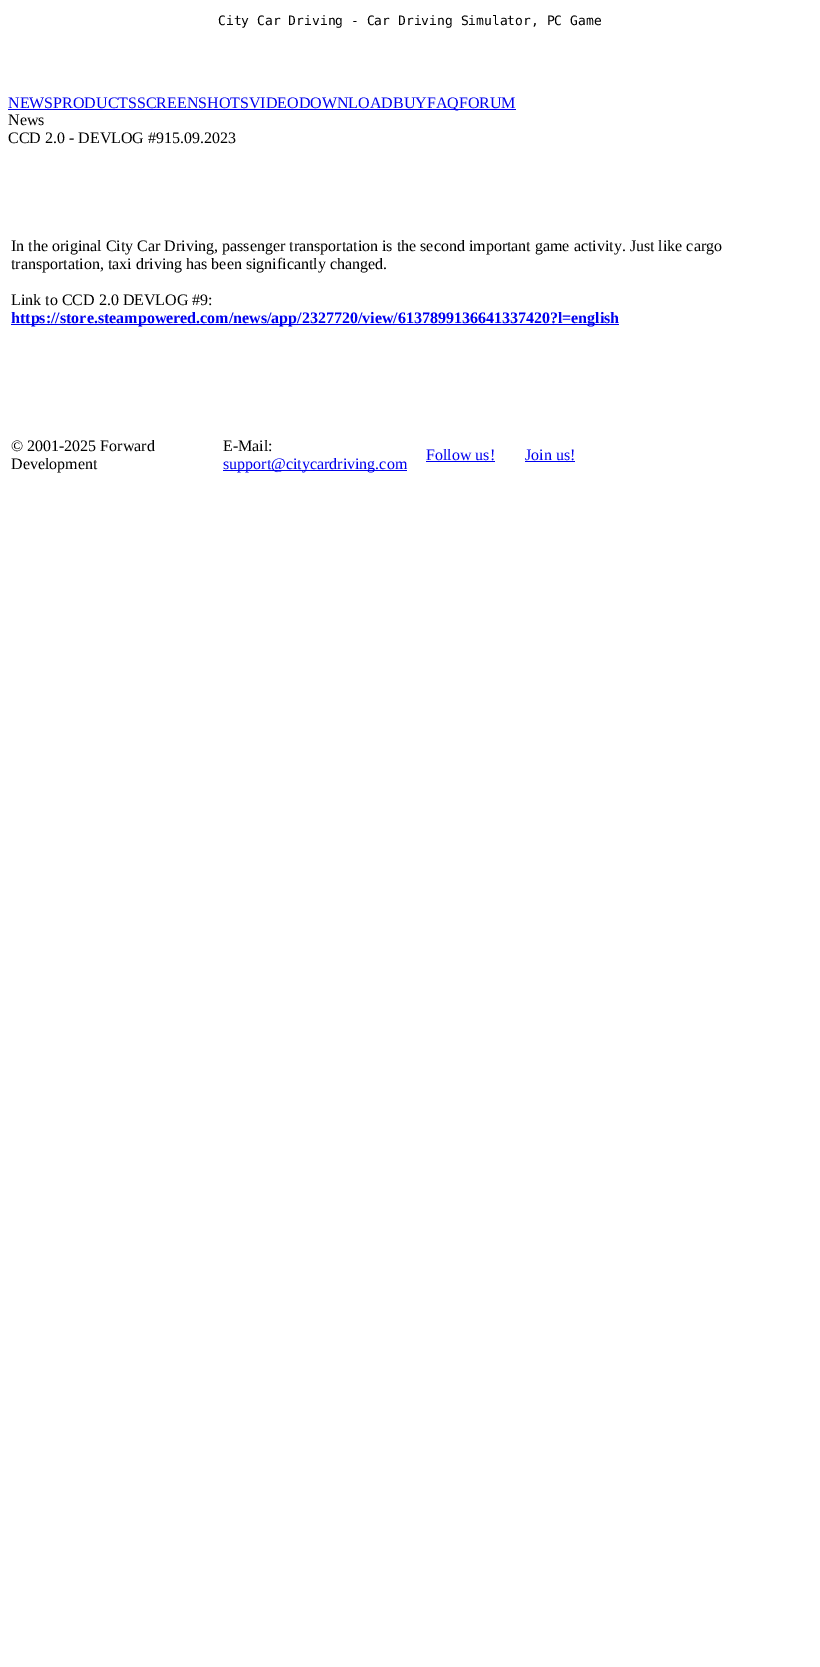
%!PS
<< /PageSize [820 1667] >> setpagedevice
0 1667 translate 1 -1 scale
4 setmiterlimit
1 setgray
0 0 820 1667 rectfill
/DejaVuSansMono-Regular [13 0 0 -13 0 0] selectfont
0 setgray
218 25 moveto (City Car Driving - Car Driving Simulator, PC Game) show
0 0 0.933 setrgbcolor
8 109 508 1 rectfill
/LiberationSerif-Regular [16 0 0 -16 0 0] selectfont
8 108 moveto (NEWSPRODUCTSSCREENSHOTSVIDEODOWNLOADBUYFAQFORUM) show
0 setgray
8 125 moveto (News) show
8 143 moveto (CCD 2.0 - DEVLOG #915.09.2023) show
11 251 moveto (In the original City Car Driving, passenger transportation is the second important game activity. Just like cargo) show
11 269 moveto (transportation, taxi driving has been significantly changed.) show
11 305 moveto (Link to CCD 2.0 DEVLOG #9:) show
0 0 0.933 setrgbcolor
11 324 608 1 rectfill
/LiberationSerif-Bold [16 0 0 -16 0 0] selectfont
11 323 moveto (https://store.steampowered.com/news/app/2327720/view/6137899136641337420?l=english) show
/LiberationSerif-Regular [16 0 0 -16 0 0] selectfont
0 setgray
11 451 moveto (© 2001-2025 Forward) show
11 469 moveto (Development) show
223 451 moveto (E-Mail:) show
0 0 0.933 setrgbcolor
223 470 184 1 rectfill
223 469 moveto (support@citycardriving.com) show
426 460 moveto (Follow us!) show
426 461 69 1 rectfill
525 460 moveto (Join us!) show
525 461 50 1 rectfill
showpage
